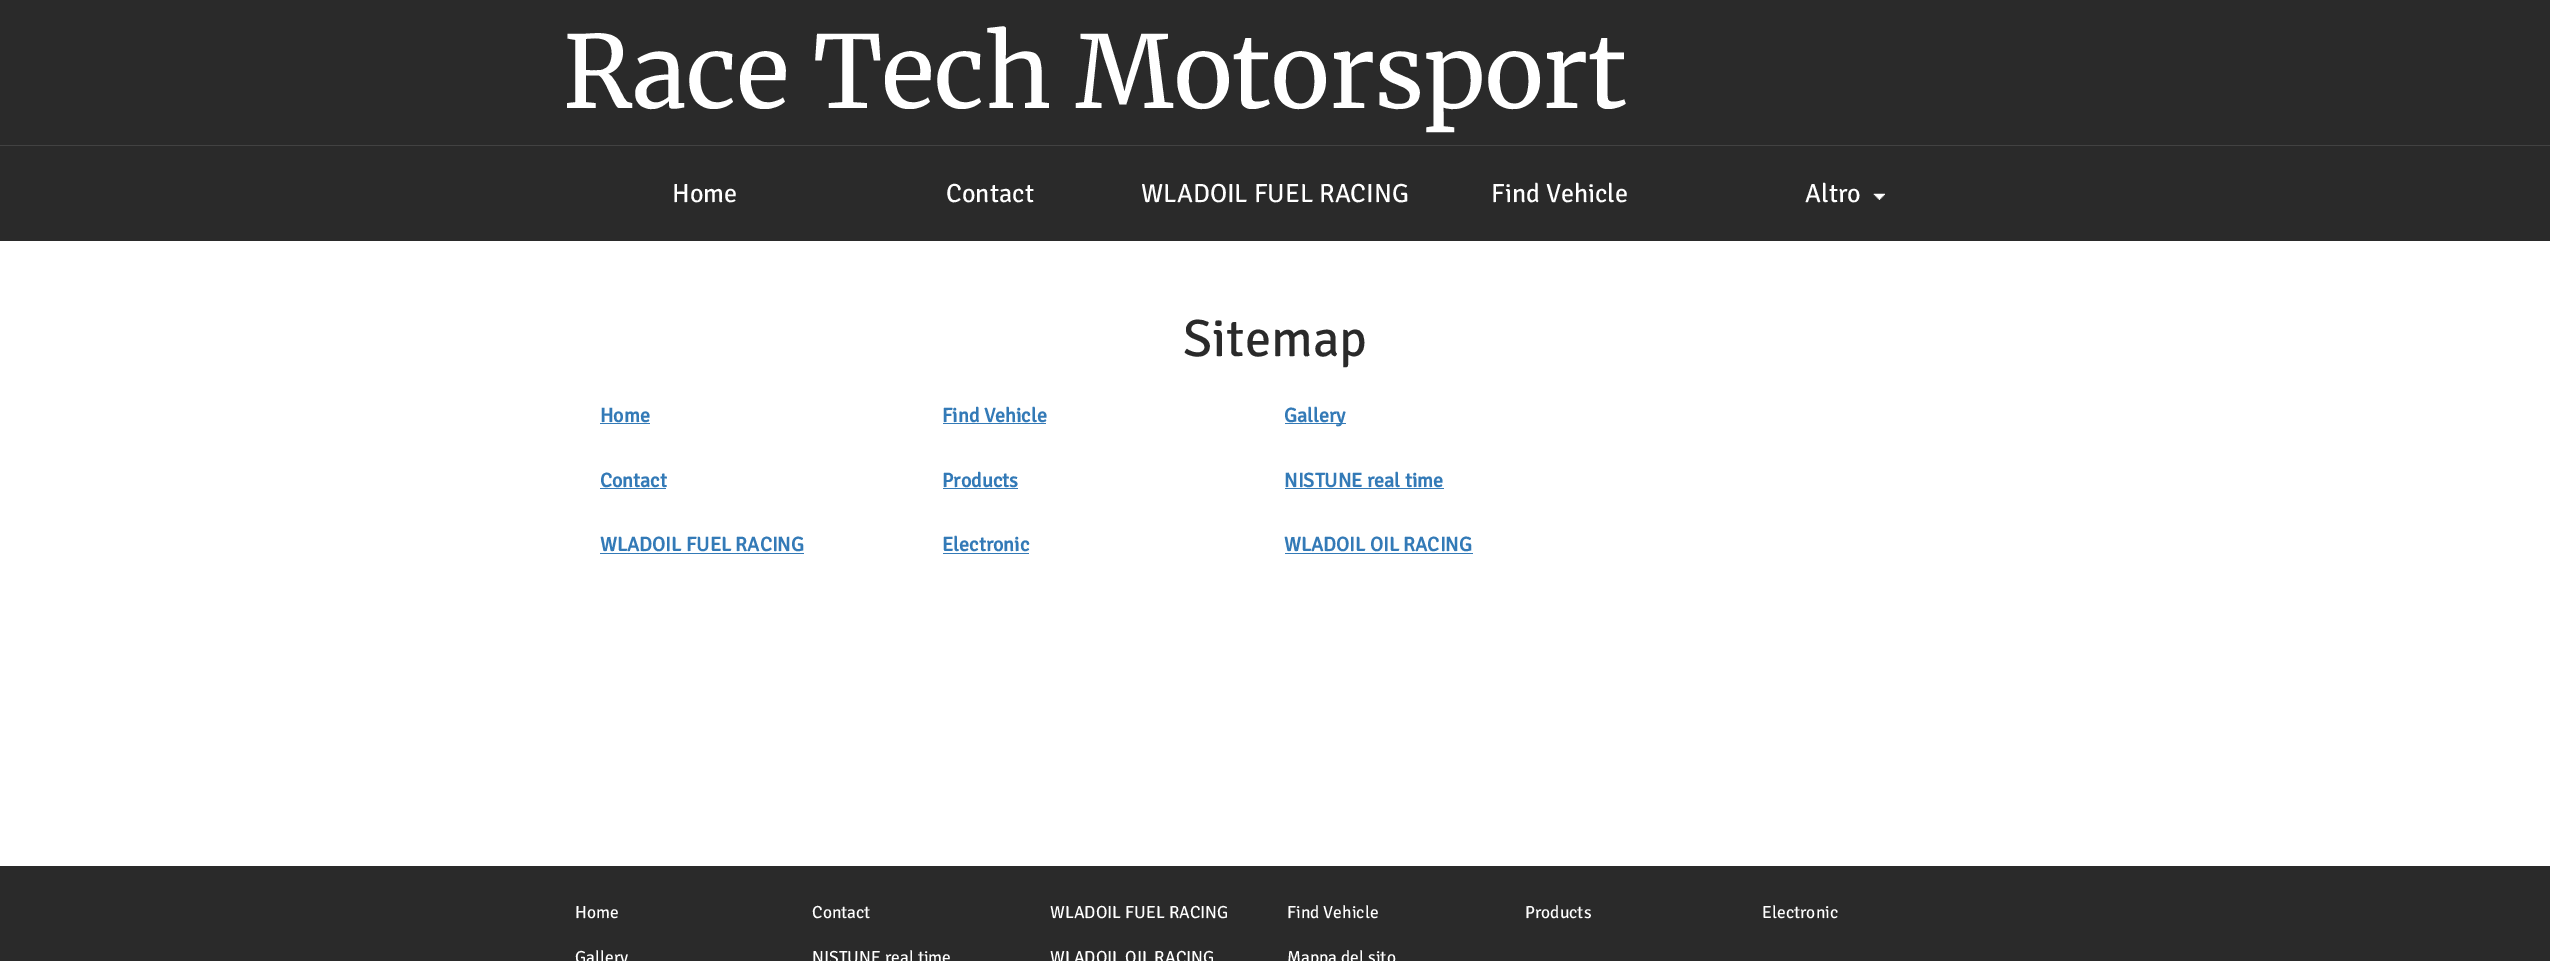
%!PS
<< /PageSize [2550 961] >> setpagedevice
/picture { 5 dict begin { /h /w /y /x /name } { exch def } forall
  gsave x y translate w h scale
  w h 8 [w 0 0 h 0 0] name (r) file false 3 colorimage grestore end } def
0 961 translate 1 -1 scale
4 setmiterlimit
1 setgray
0 0 2550 961 rectfill
0.165 setgray
0 0 2550 241 rectfill
0.259 setgray
0 145 2550 1 rectfill
/Merriweather-Light [100 0 0 -100 0 0] selectfont
1 setgray
563 108 moveto (Race Tech Motorsport) show
/SignikaNegative-Light [26.25 0 0 -26.25 0 0] selectfont
672 202 moveto (Home) show
946 202 moveto (Contact) show
1141 202 moveto (WLADOIL FUEL RACING) show
1491 202 moveto (Find Vehicle) show
1805 202 moveto (Altro) show
(img1.rgb) 1873 193 12 7 picture
/SignikaNegative-Light [52.5 0 0 -52.5 0 0] selectfont
0.165 setgray
1183 356 moveto (Sitemap) show
/SignikaNegative-Bold [20 0 0 -20 0 0] selectfont
0.2 0.478 0.718 setrgbcolor
600 422 moveto (Home) show
600 423 50 1 rectfill
942 422 moveto (Find Vehicle) show
943 423 103 1 rectfill
1285 423 61 1 rectfill
1284 422 moveto (Gallery) show
600 487 moveto (Contact) show
600 488 66 1 rectfill
942 487 moveto (Products) show
943 488 75 1 rectfill
1284 487 moveto (NISTUNE real time) show
1285 488 159 1 rectfill
600 551 moveto (WLADOIL FUEL RACING) show
600 553 204 1 rectfill
942 551 moveto (Electronic) show
943 553 86 1 rectfill
1284 551 moveto (WLADOIL OIL RACING) show
1285 553 188 1 rectfill
0.165 setgray
0 866 2550 95 rectfill
/SignikaNegative-Light [17.5 0 0 -17.5 0 0] selectfont
1 setgray
575 918 moveto (Home) show
812 918 moveto (Contact) show
1050 918 moveto (WLADOIL FUEL RACING) show
1287 918 moveto (Find Vehicle) show
1525 918 moveto (Products) show
1762 918 moveto (Electronic) show
575 963 moveto (Gallery) show
812 963 moveto (NISTUNE real time) show
1050 963 moveto (WLADOIL OIL RACING) show
1287 963 moveto (Mappa del sito) show
showpage
